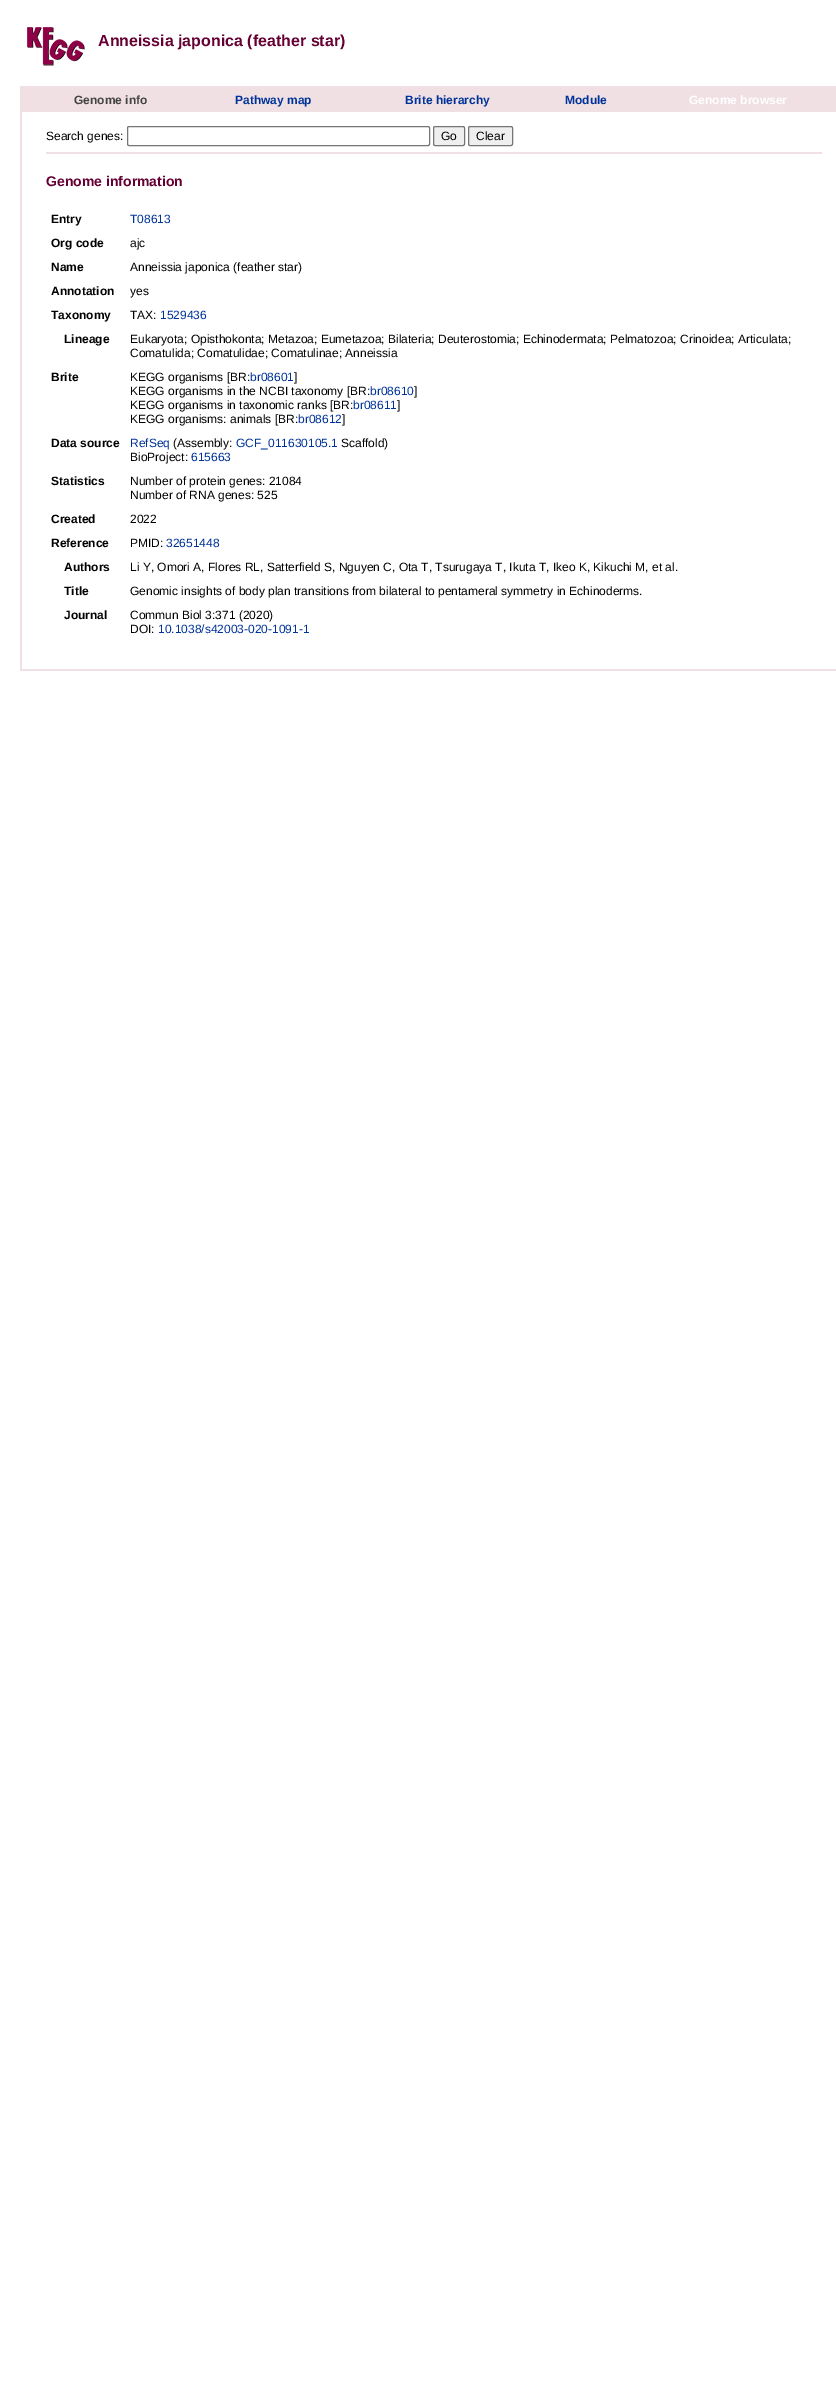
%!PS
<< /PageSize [836 2398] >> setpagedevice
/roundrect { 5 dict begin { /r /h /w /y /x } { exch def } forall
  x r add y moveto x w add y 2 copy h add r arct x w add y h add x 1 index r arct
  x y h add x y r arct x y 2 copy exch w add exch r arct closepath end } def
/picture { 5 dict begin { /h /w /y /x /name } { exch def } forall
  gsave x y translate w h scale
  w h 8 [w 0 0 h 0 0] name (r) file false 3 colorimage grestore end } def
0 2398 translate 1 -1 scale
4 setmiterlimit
1 setgray
0 0 836 2398 rectfill
(img1.rgb) 27 27 58 39 picture
/LiberationSans-Bold [16 0 0 -16 0 0] selectfont
0.4 0 0.2 setrgbcolor
98 46 moveto (Anneissia japonica \(feather star\)) show
0.941 0.878 0.894 setrgbcolor
20 86 816 2 rectfill
20 669 816 2 rectfill
20 86 2 585 rectfill
22 88 814 24 rectfill
/LiberationSans-Bold [12 0 0 -12 0 0] selectfont
0.267 setgray
74 104 moveto (Genome info) show
0 0.2 0.6 setrgbcolor
235 104 moveto (Pathway map) show
405 104 moveto (Brite hierarchy) show
565 104 moveto (Module) show
1 setgray
689 104 moveto (Genome browser) show
/LiberationSans-Regular [12 0 0 -12 0 0] selectfont
0 setgray
46 140 moveto (Search genes:) show
0.463 setgray
127.5 126.5 302 19 1.5 roundrect stroke
0.937 setgray
433.5 126.5 31 19 1.5 roundrect gsave fill grestore
0.463 setgray
stroke
0 setgray
441 140 moveto (Go) show
0.937 setgray
468.5 126.5 44 19 1.5 roundrect gsave fill grestore
0.463 setgray
stroke
0 setgray
476 140 moveto (Clear) show
0.941 0.878 0.894 setrgbcolor
46 152 776 2 rectfill
/LiberationSans-Bold [14 0 0 -14 0 0] selectfont
0.4 0 0.2 setrgbcolor
46 186 moveto (Genome information) show
/LiberationSans-Bold [12 0 0 -12 0 0] selectfont
0 setgray
51 223 moveto (Entry) show
/LiberationSans-Regular [12 0 0 -12 0 0] selectfont
0 0.2 0.6 setrgbcolor
130 223 moveto (T08613) show
/LiberationSans-Bold [12 0 0 -12 0 0] selectfont
0 setgray
51 247 moveto (Org code) show
/LiberationSans-Regular [12 0 0 -12 0 0] selectfont
130 247 moveto (ajc) show
/LiberationSans-Bold [12 0 0 -12 0 0] selectfont
51 271 moveto (Name) show
/LiberationSans-Regular [12 0 0 -12 0 0] selectfont
130 271 moveto (Anneissia japonica \(feather star\)) show
/LiberationSans-Bold [12 0 0 -12 0 0] selectfont
51 295 moveto (Annotation) show
/LiberationSans-Regular [12 0 0 -12 0 0] selectfont
130 295 moveto (yes) show
/LiberationSans-Bold [12 0 0 -12 0 0] selectfont
51 319 moveto (Taxonomy) show
/LiberationSans-Regular [12 0 0 -12 0 0] selectfont
130 319 moveto (TAX:) show
0 0.2 0.6 setrgbcolor
160 319 moveto (1529436) show
/LiberationSans-Bold [12 0 0 -12 0 0] selectfont
0 setgray
64 343 moveto (Lineage) show
/LiberationSans-Regular [12 0 0 -12 0 0] selectfont
130 343 moveto (Eukaryota; Opisthokonta; Metazoa; Eumetazoa; Bilateria; Deuterostomia; Echinodermata; Pelmatozoa; Crinoidea; Articulata;) show
130 357 moveto (Comatulida; Comatulidae; Comatulinae; Anneissia) show
/LiberationSans-Bold [12 0 0 -12 0 0] selectfont
51 381 moveto (Brite) show
/LiberationSans-Regular [12 0 0 -12 0 0] selectfont
130 381 moveto (KEGG organisms [BR:) show
0 0.2 0.6 setrgbcolor
250 381 moveto (br08601) show
0 setgray
294 381 moveto (]) show
130 395 moveto (KEGG organisms in the NCBI taxonomy [BR:) show
0 0.2 0.6 setrgbcolor
370 395 moveto (br08610) show
0 setgray
414 395 moveto (]) show
130 409 moveto (KEGG organisms in taxonomic ranks [BR:) show
0 0.2 0.6 setrgbcolor
353 409 moveto (br08611) show
0 setgray
397 409 moveto (]) show
130 423 moveto (KEGG organisms: animals [BR:) show
0 0.2 0.6 setrgbcolor
298 423 moveto (br08612) show
0 setgray
342 423 moveto (]) show
/LiberationSans-Bold [12 0 0 -12 0 0] selectfont
51 447 moveto (Data source) show
/LiberationSans-Regular [12 0 0 -12 0 0] selectfont
0 0.2 0.6 setrgbcolor
130 447 moveto (RefSeq) show
0 setgray
173 447 moveto (\(Assembly:) show
0 0.2 0.6 setrgbcolor
236 447 moveto (GCF_011630105.1) show
0 setgray
341 447 moveto (Scaffold\)) show
130 461 moveto (BioProject:) show
0 0.2 0.6 setrgbcolor
191 461 moveto (615663) show
/LiberationSans-Bold [12 0 0 -12 0 0] selectfont
0 setgray
51 485 moveto (Statistics) show
/LiberationSans-Regular [12 0 0 -12 0 0] selectfont
130 485 moveto (Number of protein genes: 21084) show
130 499 moveto (Number of RNA genes: 525) show
/LiberationSans-Bold [12 0 0 -12 0 0] selectfont
51 523 moveto (Created) show
/LiberationSans-Regular [12 0 0 -12 0 0] selectfont
130 523 moveto (2022) show
/LiberationSans-Bold [12 0 0 -12 0 0] selectfont
51 547 moveto (Reference) show
/LiberationSans-Regular [12 0 0 -12 0 0] selectfont
130 547 moveto (PMID:) show
0 0.2 0.6 setrgbcolor
166 547 moveto (32651448) show
/LiberationSans-Bold [12 0 0 -12 0 0] selectfont
0 setgray
64 571 moveto (Authors) show
/LiberationSans-Regular [12 0 0 -12 0 0] selectfont
130 571 moveto (Li Y, Omori A, Flores RL, Satterfield S, Nguyen C, Ota T, Tsurugaya T, Ikuta T, Ikeo K, Kikuchi M, et al.) show
/LiberationSans-Bold [12 0 0 -12 0 0] selectfont
64 595 moveto (Title) show
/LiberationSans-Regular [12 0 0 -12 0 0] selectfont
130 595 moveto (Genomic insights of body plan transitions from bilateral to pentameral symmetry in Echinoderms.) show
/LiberationSans-Bold [12 0 0 -12 0 0] selectfont
64 619 moveto (Journal) show
/LiberationSans-Regular [12 0 0 -12 0 0] selectfont
130 619 moveto (Commun Biol 3:371 \(2020\)) show
130 633 moveto (DOI:) show
0 0.2 0.6 setrgbcolor
158 633 moveto (10.1038/s42003-020-1091-1) show
showpage
